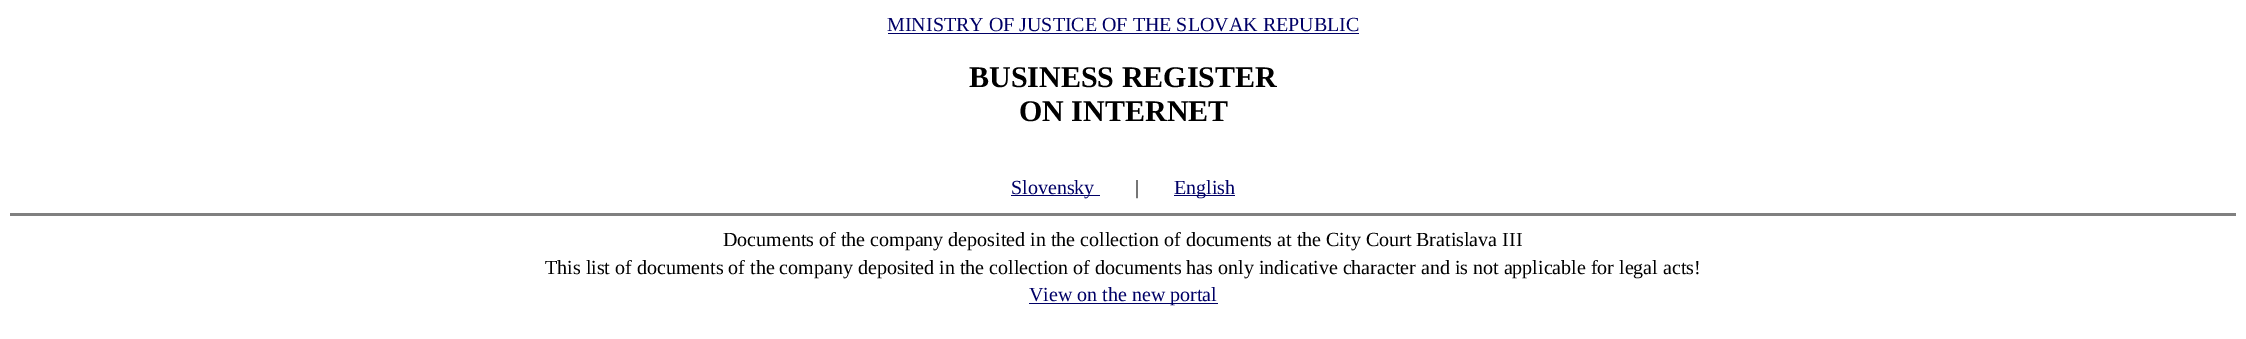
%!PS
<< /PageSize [2246 339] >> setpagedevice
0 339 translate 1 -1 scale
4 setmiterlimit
1 setgray
0 0 2246 339 rectfill
/LiberationSerif-Regular [20 0 0 -20 0 0] selectfont
0 0 0.4 setrgbcolor
887 31 moveto (MINISTRY OF JUSTICE OF THE SLOVAK REPUBLIC) show
888 33 471 1 rectfill
/LiberationSerif-Bold [30 0 0 -30 0 0] selectfont
0 setgray
969 87 moveto (BUSINESS REGISTER) show
1019 121 moveto (ON INTERNET) show
0 0 0.4 setrgbcolor
1011 195 89 1 rectfill
/LiberationSerif-Regular [20 0 0 -20 0 0] selectfont
1011 194 moveto (Slovensky) show
0 setgray
1135 194 moveto (|) show
0 0 0.4 setrgbcolor
1174 195 61 1 rectfill
1174 194 moveto (English) show
0.502 setgray
10 213 2226 3 rectfill
0 setgray
723 246 moveto (Documents of the company deposited in the collection of documents at the City Court Bratislava III) show
545 274 moveto (This list of documents of the company deposited in the collection of documents has only indicative character and is not applicable for legal acts!) show
0 0 0.4 setrgbcolor
1029 303 189 1 rectfill
1029 301 moveto (View on the new portal) show
showpage
